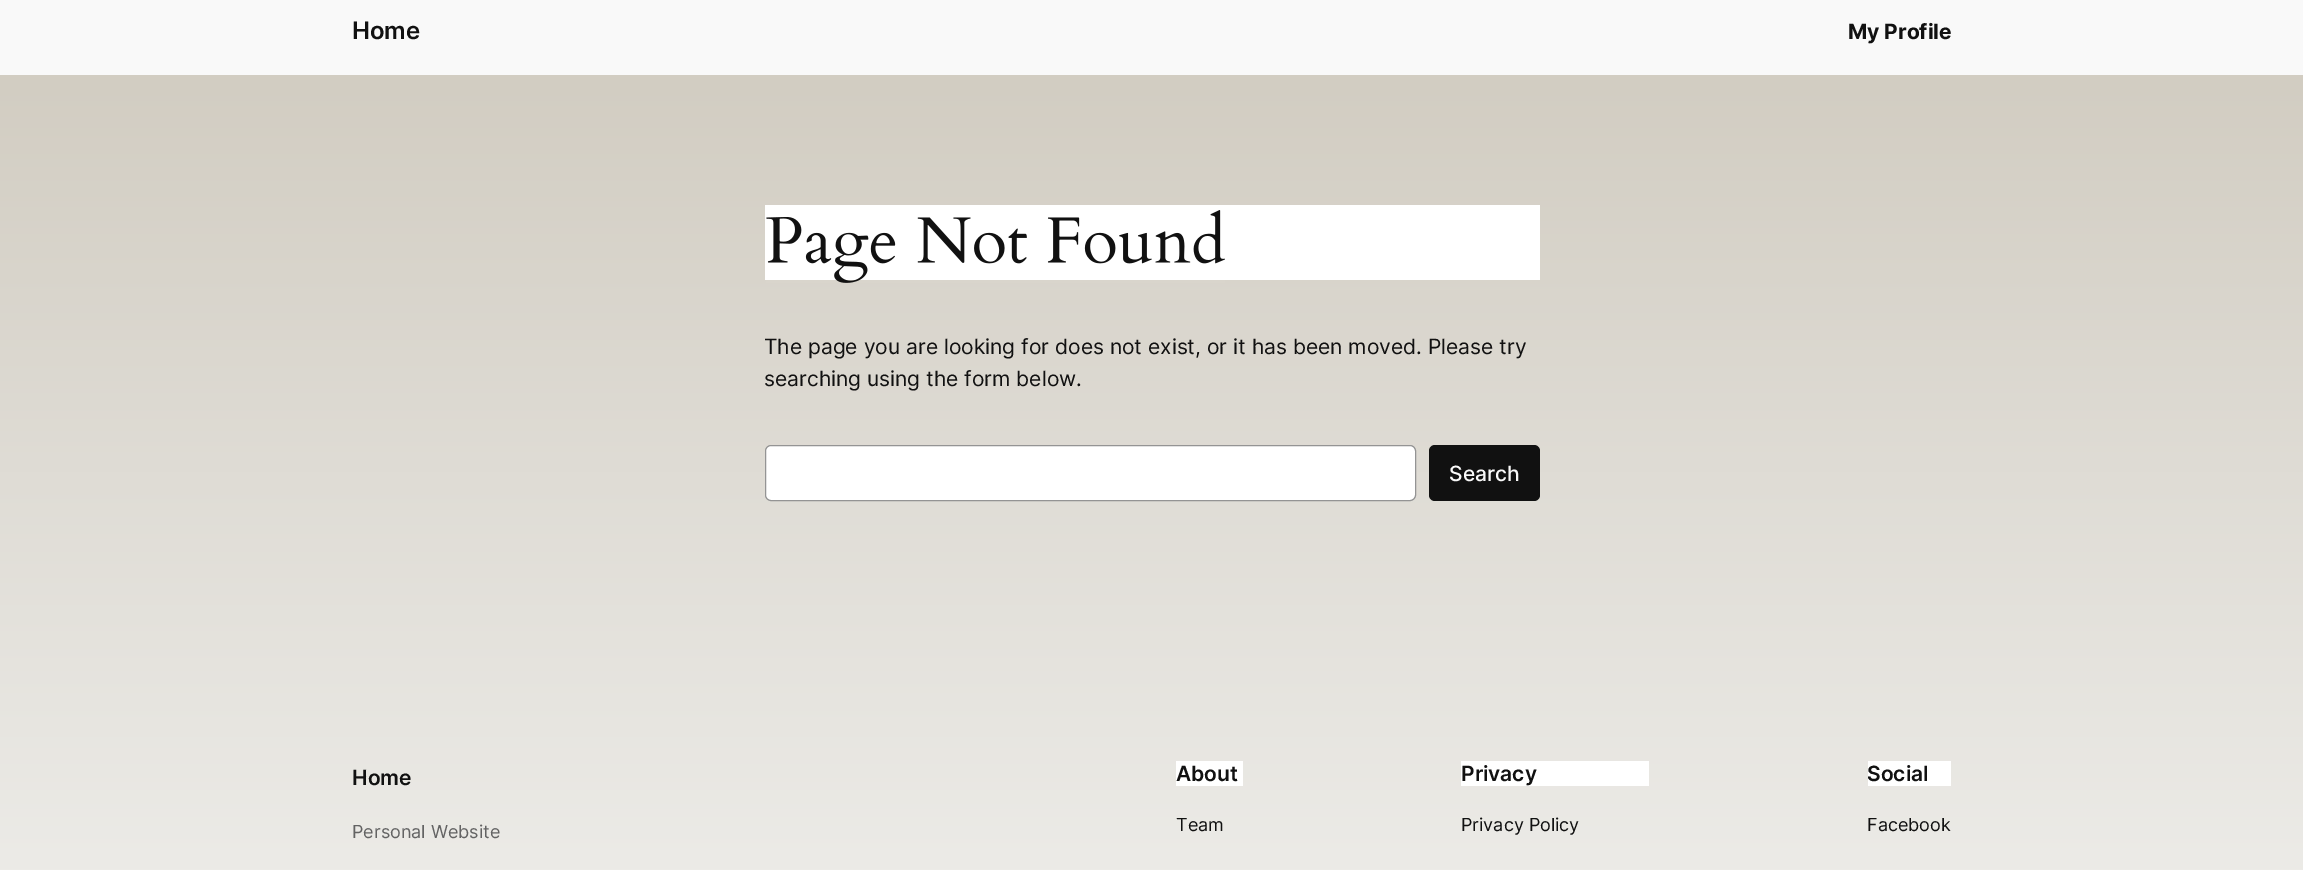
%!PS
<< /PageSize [2303 870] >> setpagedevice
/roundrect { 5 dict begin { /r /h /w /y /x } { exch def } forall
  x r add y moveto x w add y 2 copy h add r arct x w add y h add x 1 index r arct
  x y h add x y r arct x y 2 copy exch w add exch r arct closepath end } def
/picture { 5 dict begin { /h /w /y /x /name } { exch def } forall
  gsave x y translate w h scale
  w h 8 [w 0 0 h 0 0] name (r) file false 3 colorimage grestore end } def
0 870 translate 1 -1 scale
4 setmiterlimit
1 setgray
0 0 2303 870 rectfill
gsave newpath 0 75 moveto 2303 75 lineto 2303 870 lineto 0 870 lineto closepath clip newpath
<< /ShadingType 2 /ColorSpace /DeviceRGB /Coords [1152 -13 1152 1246] /Extend [true true] /Function << /FunctionType 2 /Domain [0 1] /C0 [0.812 0.792 0.745] /C1 [0.976 0.976 0.976] /N 1 >> >> shfill grestore
0.976 setgray
0 0 2303 75 rectfill
/Inter-SemiBold [24 0 0 -24 0 0] selectfont
0.067 setgray
352 39 moveto (Home) show
/Inter-Bold [21 0 0 -21 0 0] selectfont
1848 39 moveto (My Profile) show
1 setgray
765 205 775 75 rectfill
(img1.rgb) 766 210 459 73 picture
/Inter-Regular [21 0 0 -21 0 0] selectfont
0.067 setgray
764 354 moveto (The page you are looking for does not exist, or it has been moved. Please try) show
764 386 moveto (searching using the form below.) show
1 setgray
765.5 445.5 650 55 5.5 roundrect gsave fill grestore
0.58 setgray
stroke
0.067 setgray
1429 445 111 56 6 roundrect fill
/Inter-Medium [21 0 0 -21 0 0] selectfont
0.976 setgray
1449 481 moveto (Search) show
/Inter-SemiBold [21 0 0 -21 0 0] selectfont
0.067 setgray
352 785 moveto (Home) show
/Inter-Regular [18 0 0 -18 0 0] selectfont
0.388 setgray
352 838 moveto (Personal Website) show
1 setgray
1176 761 67 25 rectfill
/Inter-SemiBold [21 0 0 -21 0 0] selectfont
0.067 setgray
1176 781 moveto (About) show
/Inter-Regular [18 0 0 -18 0 0] selectfont
1176 831 moveto (Team) show
1 setgray
1461 761 188 25 rectfill
/Inter-SemiBold [21 0 0 -21 0 0] selectfont
0.067 setgray
1461 781 moveto (Privacy) show
/Inter-Regular [18 0 0 -18 0 0] selectfont
1461 831 moveto (Privacy Policy) show
1 setgray
1868 761 83 25 rectfill
/Inter-SemiBold [21 0 0 -21 0 0] selectfont
0.067 setgray
1867 781 moveto (Social) show
/Inter-Regular [18 0 0 -18 0 0] selectfont
1867 831 moveto (Facebook) show
showpage
